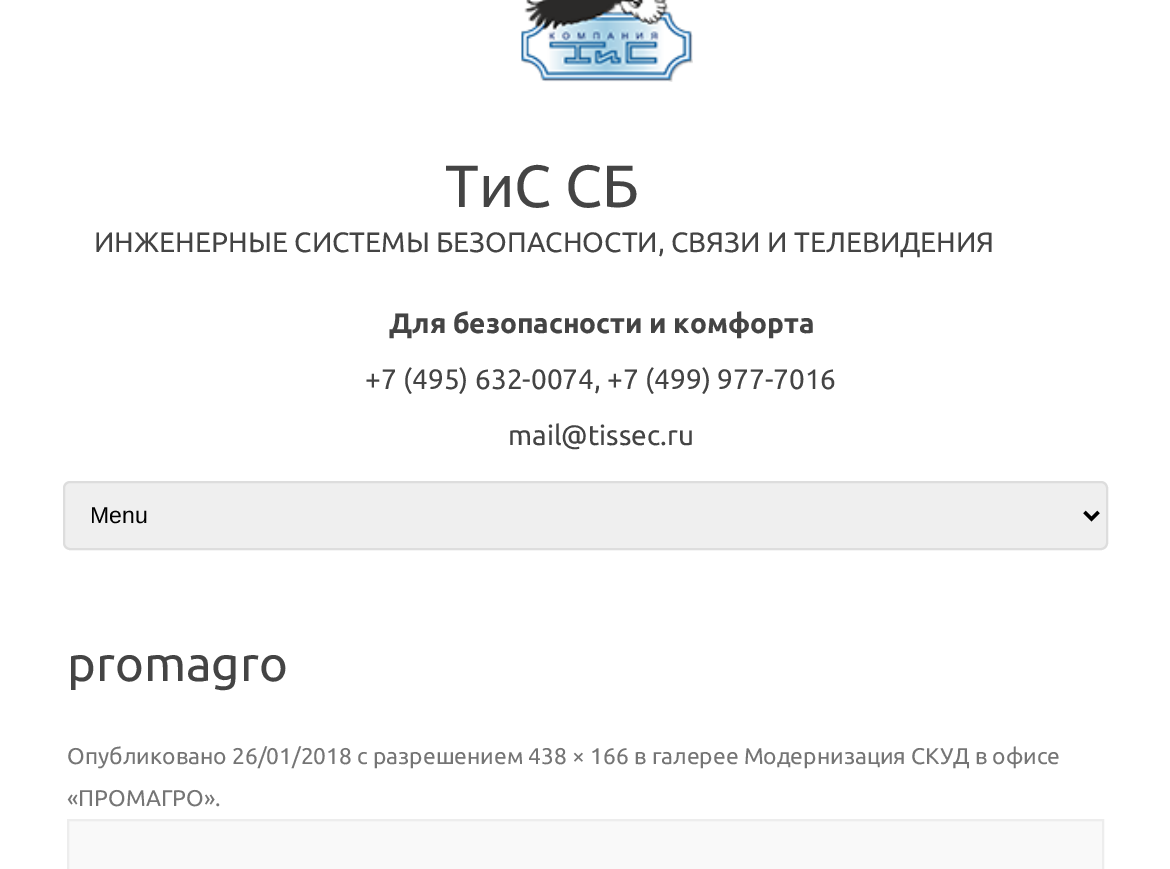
%!PS
<< /PageSize [1170 869] >> setpagedevice
/roundrect { 5 dict begin { /r /h /w /y /x } { exch def } forall
  x r add y moveto x w add y 2 copy h add r arct x w add y h add x 1 index r arct
  x y h add x y r arct x y 2 copy exch w add exch r arct closepath end } def
/picture { 5 dict begin { /h /w /y /x /name } { exch def } forall
  gsave x y translate w h scale
  w h 8 [w 0 0 h 0 0] name (r) file false 3 colorimage grestore end } def
0 869 translate 1 -1 scale
4 setmiterlimit
1 setgray
0 0 1170 869 rectfill
(img1.rgb) 521 0 172 82 picture
/Ubuntu-Regular [59.5 0 0 -59.5 0 0] selectfont
0.267 setgray
445 207 moveto (ТиС СБ) show
/Ubuntu-Regular [28 0 0 -28 0 0] selectfont
94 252 moveto (ИНЖЕНЕРНЫЕ СИСТЕМЫ БЕЗОПАСНОСТИ, СВЯЗИ И ТЕЛЕВИДЕНИЯ) show
/Ubuntu-Bold [28 0 0 -28 0 0] selectfont
389 333 moveto (Для безопасности и комфорта) show
/Ubuntu-Regular [28 0 0 -28 0 0] selectfont
365 389 moveto (+7 \(495\) 632-0074, +7 \(499\) 977-7016) show
508 445 moveto (mail@tissec.ru) show
0.937 setgray
64 482 1043 67 6 roundrect gsave fill grestore
0.867 setgray
2 setlinewidth
stroke
0 setgray
3.5 setlinewidth
newpath 1084.5 512 moveto 1091.5 519 lineto 1098.5 512 lineto stroke
/LiberationSans-Regular [23 0 0 -23 0 0] selectfont
90 523 moveto (Menu) show
/Ubuntu-Regular [49 0 0 -49 0 0] selectfont
0.267 setgray
67 681 moveto (promagro) show
/Ubuntu-Regular [22.75 0 0 -22.75 0 0] selectfont
0.459 setgray
67 764 moveto (Опубликовано 26/01/2018 с разрешением 438 × 166 в галерее Модернизация СКУД в офисе) show
67 806 moveto («ПРОМАГРО».) show
0.976 setgray
newpath 68 820 moveto 1103 820 lineto 1103 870 lineto 68 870 lineto closepath gsave fill grestore
0.929 setgray
2 setlinewidth
stroke
showpage
